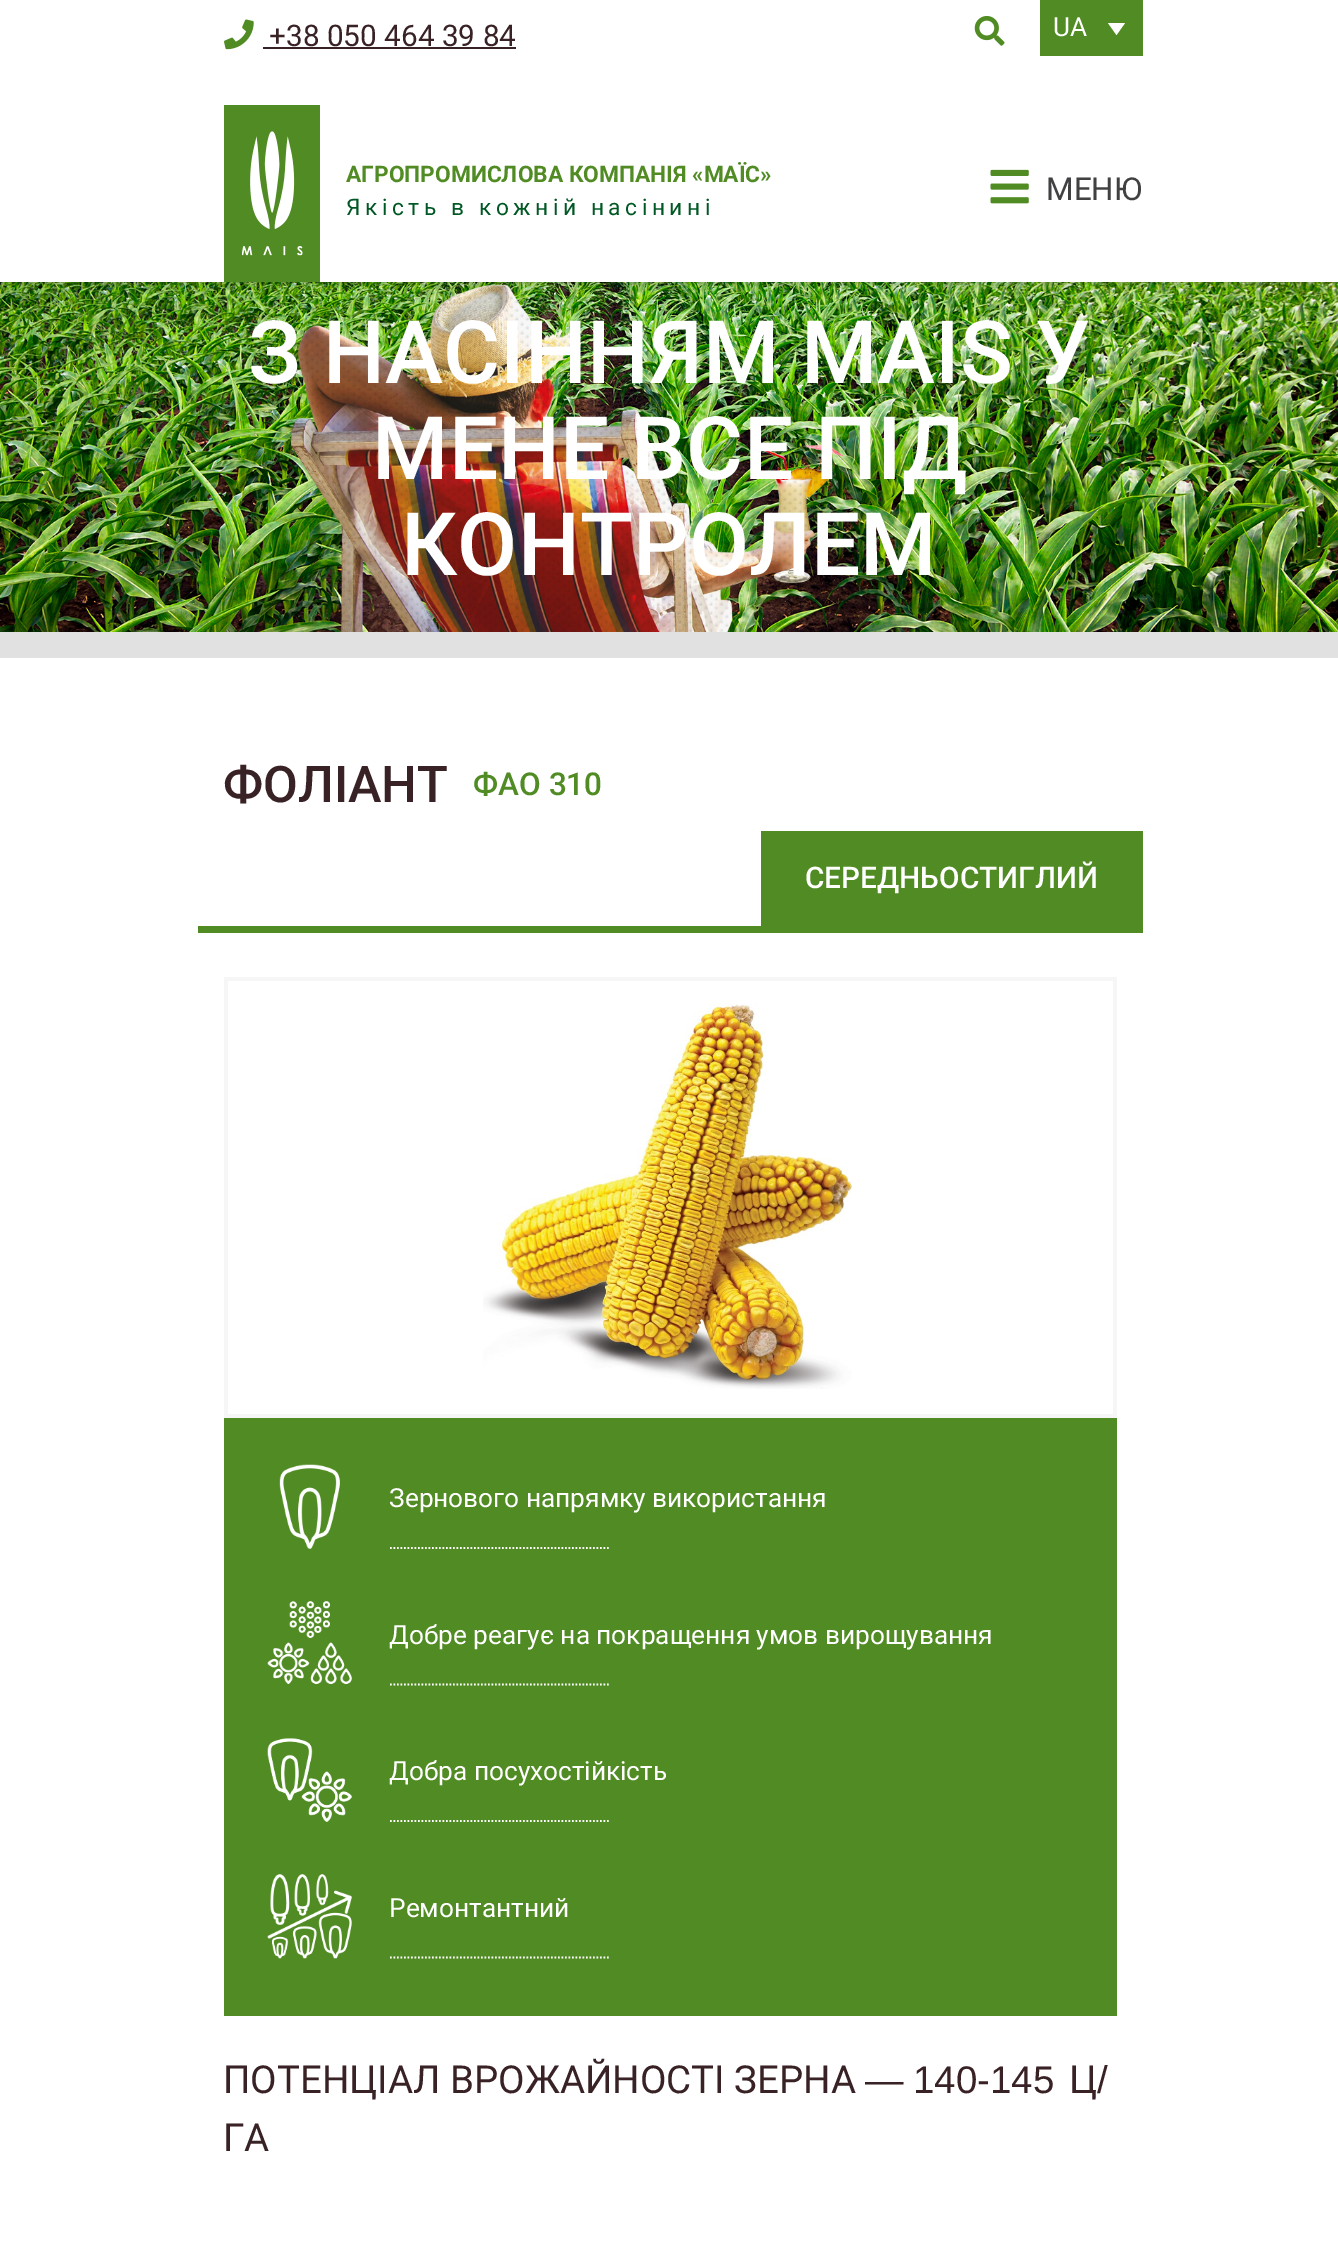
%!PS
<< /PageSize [1338 2250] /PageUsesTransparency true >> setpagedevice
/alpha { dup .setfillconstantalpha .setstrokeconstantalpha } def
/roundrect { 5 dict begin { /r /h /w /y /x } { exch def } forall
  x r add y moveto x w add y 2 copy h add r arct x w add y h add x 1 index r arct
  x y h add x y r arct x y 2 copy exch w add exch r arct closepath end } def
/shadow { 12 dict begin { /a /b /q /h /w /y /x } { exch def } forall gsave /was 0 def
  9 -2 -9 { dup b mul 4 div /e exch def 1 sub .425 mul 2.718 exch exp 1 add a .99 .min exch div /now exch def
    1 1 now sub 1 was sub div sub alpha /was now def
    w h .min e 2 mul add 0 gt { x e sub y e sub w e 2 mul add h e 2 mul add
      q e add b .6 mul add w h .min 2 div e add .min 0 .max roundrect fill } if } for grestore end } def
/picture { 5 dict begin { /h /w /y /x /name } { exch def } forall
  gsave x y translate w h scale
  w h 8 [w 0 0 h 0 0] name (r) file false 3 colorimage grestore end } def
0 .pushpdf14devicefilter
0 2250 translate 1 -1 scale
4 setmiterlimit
1 setgray
0 0 1338 2250 rectfill
(img5.rgb) 0 282 1338 350 picture
(img6.rgb) 0 282 1338 350 picture
0 setgray
0 0 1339 282 0 4.5 0.25 shadow
1 setgray
0 0 1338 282 rectfill
(img1.rgb) 224 19 30 31 picture
/Roboto-Regular [29.75 0 0 -29.75 0 0] selectfont
0.22 0.133 0.145 setrgbcolor
269 46 moveto (+38 050 464 39 84) show
263 47 253 2 rectfill
(img2.rgb) 974 16 31 30 picture
0.314 0.545 0.137 setrgbcolor
1040 0 103 56 rectfill
/Roboto-Regular [26.25 0 0 -26.25 0 0] selectfont
1 setgray
1053 36 moveto (UA) show
newpath 1108 23 moveto 1125 23 lineto 1116.5 35 lineto closepath fill
0.314 0.545 0.137 setrgbcolor
224 105 96 177 rectfill
(img3.rgb) 242 131 61 125 picture
/Roboto-Bold [22.75 0 0 -22.75 0 0] selectfont
346 182 moveto (АГРОПРОМИСЛОВА КОМПАНІЯ «МАЇС») show
/Roboto-Regular [22.75 0 0 -22.75 0 0] selectfont
0 0.345 0.145 setrgbcolor
346 215 moveto 4.55 0 (Якiсть в кожнiй насiнинi) ashow
(img4.rgb) 990 169 39 35 picture
/Roboto-Regular [31.5 0 0 -31.5 0 0] selectfont
0.255 0.251 0.259 setrgbcolor
1046 200 moveto (МЕНЮ) show
0.882 setgray
0 632 1338 26 rectfill
/Roboto-Medium [87.5 0 0 -87.5 0 0] selectfont
1 setgray
248 383 moveto (З НАСІННЯМ MAIS У) show
372 479 moveto (МЕНЕ ВСЕ ПІД) show
401 575 moveto (КОНТРОЛЕМ) show
0.314 0.545 0.137 setrgbcolor
198 926 945 7 rectfill
/Roboto-Medium [50.5 0 0 -50.5 0 0] selectfont
0.22 0.133 0.145 setrgbcolor
223 802 moveto (ФОЛІАНТ) show
/Roboto-Medium [31.5 0 0 -31.5 0 0] selectfont
0.314 0.545 0.137 setrgbcolor
473 795 moveto (ФАО 310) show
761 831 382 95 rectfill
/Roboto-Medium [29.75 0 0 -29.75 0 0] selectfont
1 setgray
805 888 moveto (СЕРЕДНЬОСТИГЛИЙ) show
0.965 setgray
224 977 893 4 rectfill
1113 977 4 441 rectfill
224 1414 893 4 rectfill
224 977 4 441 rectfill
(img7.rgb) 483 1003 372 386 picture
0.314 0.545 0.137 setrgbcolor
224 1418 893 598 rectfill
(img8.rgb) 279 1464 61 85 picture
/Roboto-Regular [26.25 0 0 -26.25 0 0] selectfont
1 setgray
389 1507 moveto (Зернового напрямку використання) show
1.8 setlinewidth
[1.75 1.75] 0 setdash
newpath 390 1548 moveto 609 1548 lineto stroke
(img9.rgb) 267 1601 85 83 picture
389 1644 moveto (Добре реагує на покращення умов вирощування) show
newpath 390 1684.5 moveto 609 1684.5 lineto stroke
(img10.rgb) 267 1738 85 84 picture
389 1780 moveto (Добра посухостійкість) show
newpath 390 1821 moveto 609 1821 lineto stroke
(img11.rgb) 267 1874 85 85 picture
389 1917 moveto (Ремонтантний) show
newpath 390 1957.5 moveto 609 1957.5 lineto stroke
/Roboto-Regular [38.5 0 0 -38.5 0 0] selectfont
0.22 0.133 0.145 setrgbcolor
223 2093 moveto (ПОТЕНЦІАЛ ВРОЖАЙНОСТІ ЗЕРНА) show
/LiberationSans-Regular [38.5 0 0 -38.5 0 0] selectfont
865 2093 moveto (―) show
913 2093 moveto (140-145) show
/Roboto-Regular [38.5 0 0 -38.5 0 0] selectfont
1069 2093 moveto (Ц) show
/LiberationSans-Regular [38.5 0 0 -38.5 0 0] selectfont
1097 2093 moveto (/) show
/Roboto-Regular [38.5 0 0 -38.5 0 0] selectfont
223 2151 moveto (ГА) show
.poppdf14devicefilter showpage
